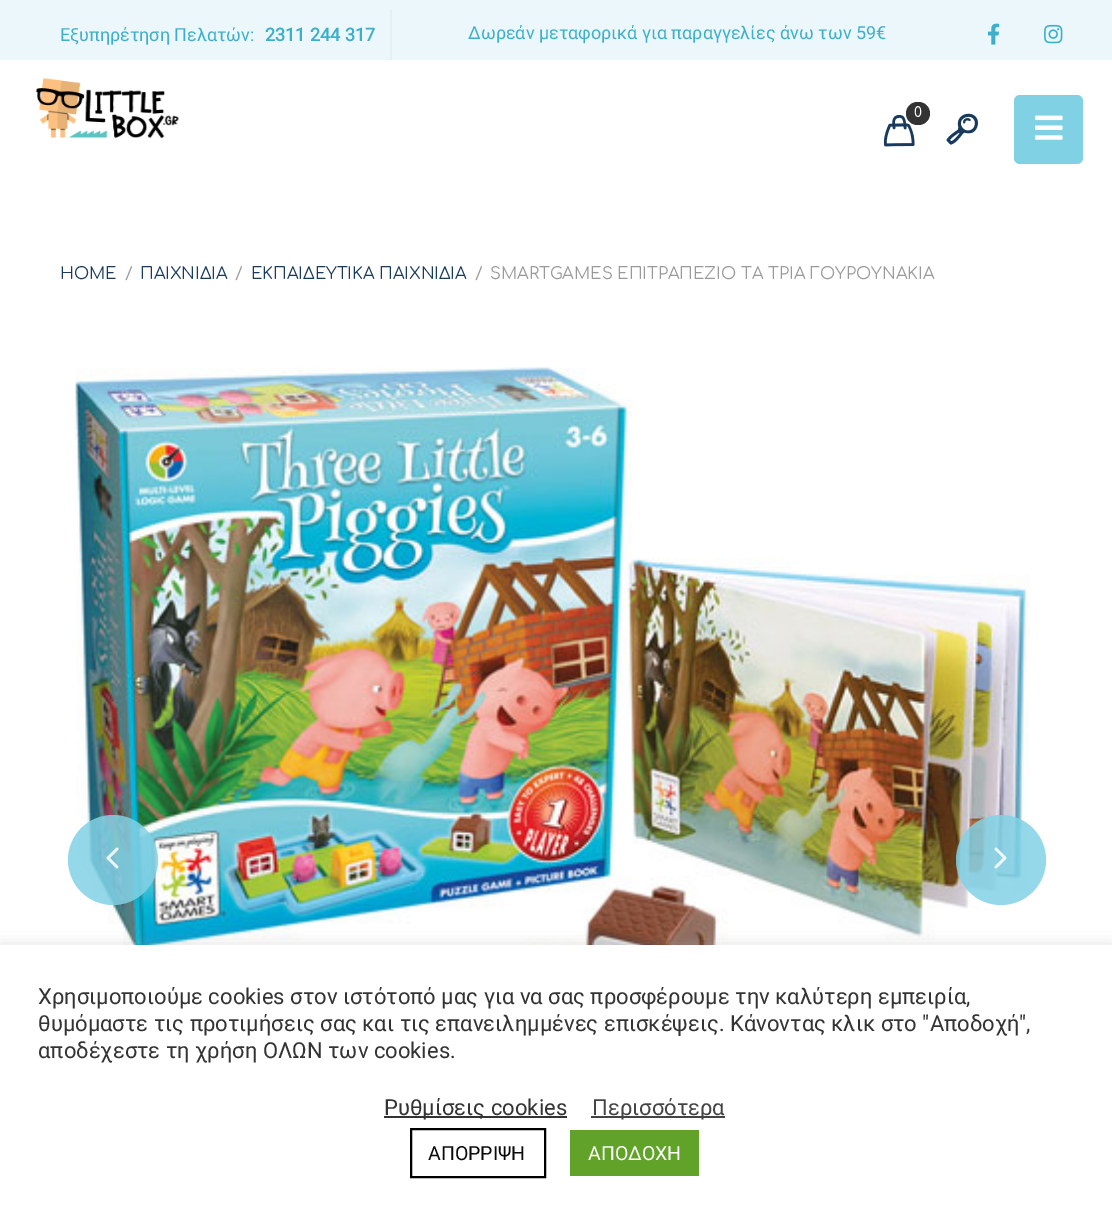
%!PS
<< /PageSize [1112 1222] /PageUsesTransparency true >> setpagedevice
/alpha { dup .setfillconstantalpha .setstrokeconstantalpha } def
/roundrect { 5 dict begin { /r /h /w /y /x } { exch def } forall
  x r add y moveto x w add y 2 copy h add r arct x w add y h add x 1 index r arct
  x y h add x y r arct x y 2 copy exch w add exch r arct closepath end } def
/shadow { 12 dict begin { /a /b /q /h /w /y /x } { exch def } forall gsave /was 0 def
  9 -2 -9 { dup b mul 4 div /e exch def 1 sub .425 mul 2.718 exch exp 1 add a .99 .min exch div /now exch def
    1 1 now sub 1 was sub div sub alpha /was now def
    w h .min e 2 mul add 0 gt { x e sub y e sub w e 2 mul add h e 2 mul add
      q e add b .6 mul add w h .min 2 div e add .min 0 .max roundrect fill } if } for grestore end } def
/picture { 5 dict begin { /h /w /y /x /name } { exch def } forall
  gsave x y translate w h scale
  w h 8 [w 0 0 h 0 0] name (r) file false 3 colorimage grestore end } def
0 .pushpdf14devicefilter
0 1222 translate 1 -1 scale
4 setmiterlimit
1 setgray
0 0 1112 1222 rectfill
0.922 0.969 0.98 setrgbcolor
0 0 1112 60 rectfill
/Roboto-Regular [18 0 0 -18 0 0] selectfont
0.243 0.686 0.796 setrgbcolor
60 41 moveto (Εξυπηρέτηση Πελατών:) show
0.894 0.941 0.953 setrgbcolor
390 9 2 51 rectfill
/Roboto-Bold [18 0 0 -18 0 0] selectfont
0.243 0.686 0.796 setrgbcolor
265 41 moveto (2311 244 317) show
/Roboto-Regular [18 0 0 -18 0 0] selectfont
468 39 moveto (Δωρεάν μεταφορικά για παραγγελίες άνω των 59€) show
(img1.rgb) 987 23 13 22 picture
(img2.rgb) 1044 24 19 20 picture
(img3.rgb) 35 77 144 62 picture
(img4.rgb) 883 114 32 33 picture
0.2 setgray
906 102 24 23 11.5 roundrect fill
/Comfortaa-Medium [14 0 0 -14 0 0] selectfont
1 setgray
914 117 moveto (0) show
(img5.rgb) 946 113 32 32 picture
0.506 0.82 0.898 setrgbcolor
1014 95 69 69 6 roundrect fill
(img6.rgb) 1035 115 28 25 picture
/Comfortaa-Regular [16.5 0 0 -16.5 0 0] selectfont
0.094 0.227 0.361 setrgbcolor
60 279 moveto (HOME) show
0.6 setgray
125 279 moveto (/) show
0.094 0.227 0.361 setrgbcolor
140 279 moveto (ΠΑΙΧΝΙΔΙΑ) show
0.6 setgray
235 279 moveto (/) show
0.094 0.227 0.361 setrgbcolor
251 279 moveto (ΕΚΠΑΙΔΕΥΤΙΚΑ ΠΑΙΧΝΙΔΙΑ) show
0.6 setgray
475 279 moveto (/) show
490 279 moveto (SMARTGAMES ΕΠΙΤΡΑΠΕΖΙΟ ΤΑ ΤΡΙΑ ΓΟΥΡΟΥΝΑΚΙΑ) show
(img7.rgb) 60 336 993 609 picture
0.85 alpha
0.506 0.82 0.898 setrgbcolor
newpath 113 860 45 0 360 arc closepath fill
1 alpha
(img8.rgb) 106 847 13 22 picture
0.85 alpha
newpath 1001 860 45 0 360 arc closepath fill
1 alpha
(img9.rgb) 994 847 13 22 picture
0.675 0.671 0.671 setrgbcolor
0 944 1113 277 0 7.5 0.3 shadow
1 setgray
0 945 1112 277 rectfill
/Roboto-Regular [22 0 0 -22 0 0] selectfont
0.2 setgray
38 1004 moveto (Χρησιμοποιούμε cookies στον ιστότοπό μας για να σας προσφέρουμε την καλύτερη εμπειρία,) show
38 1031 moveto (θυμόμαστε τις προτιμήσεις σας και τις επανειλημμένες επισκέψεις. Κάνοντας κλικ στο "Αποδοχή",) show
38 1058 moveto (αποδέχεστε τη χρήση ΟΛΩΝ των cookies.) show
384 1116 183 2 rectfill
384 1115 moveto (Ρυθμίσεις cookies) show
0.267 setgray
591 1116 134 2 rectfill
592 1115 moveto (Περισσότερα) show
0 setgray
2 setlinewidth
411 1129 134 48 rectstroke
/Roboto-Regular [19.5 0 0 -19.5 0 0] selectfont
0.039 setgray
428 1160 moveto (ΑΠΟΡΡΙΨΗ) show
0.38 0.635 0.161 setrgbcolor
570 1130 129 46 rectfill
1 setgray
588 1160 moveto (ΑΠΟΔΟΧΗ) show
.poppdf14devicefilter showpage
